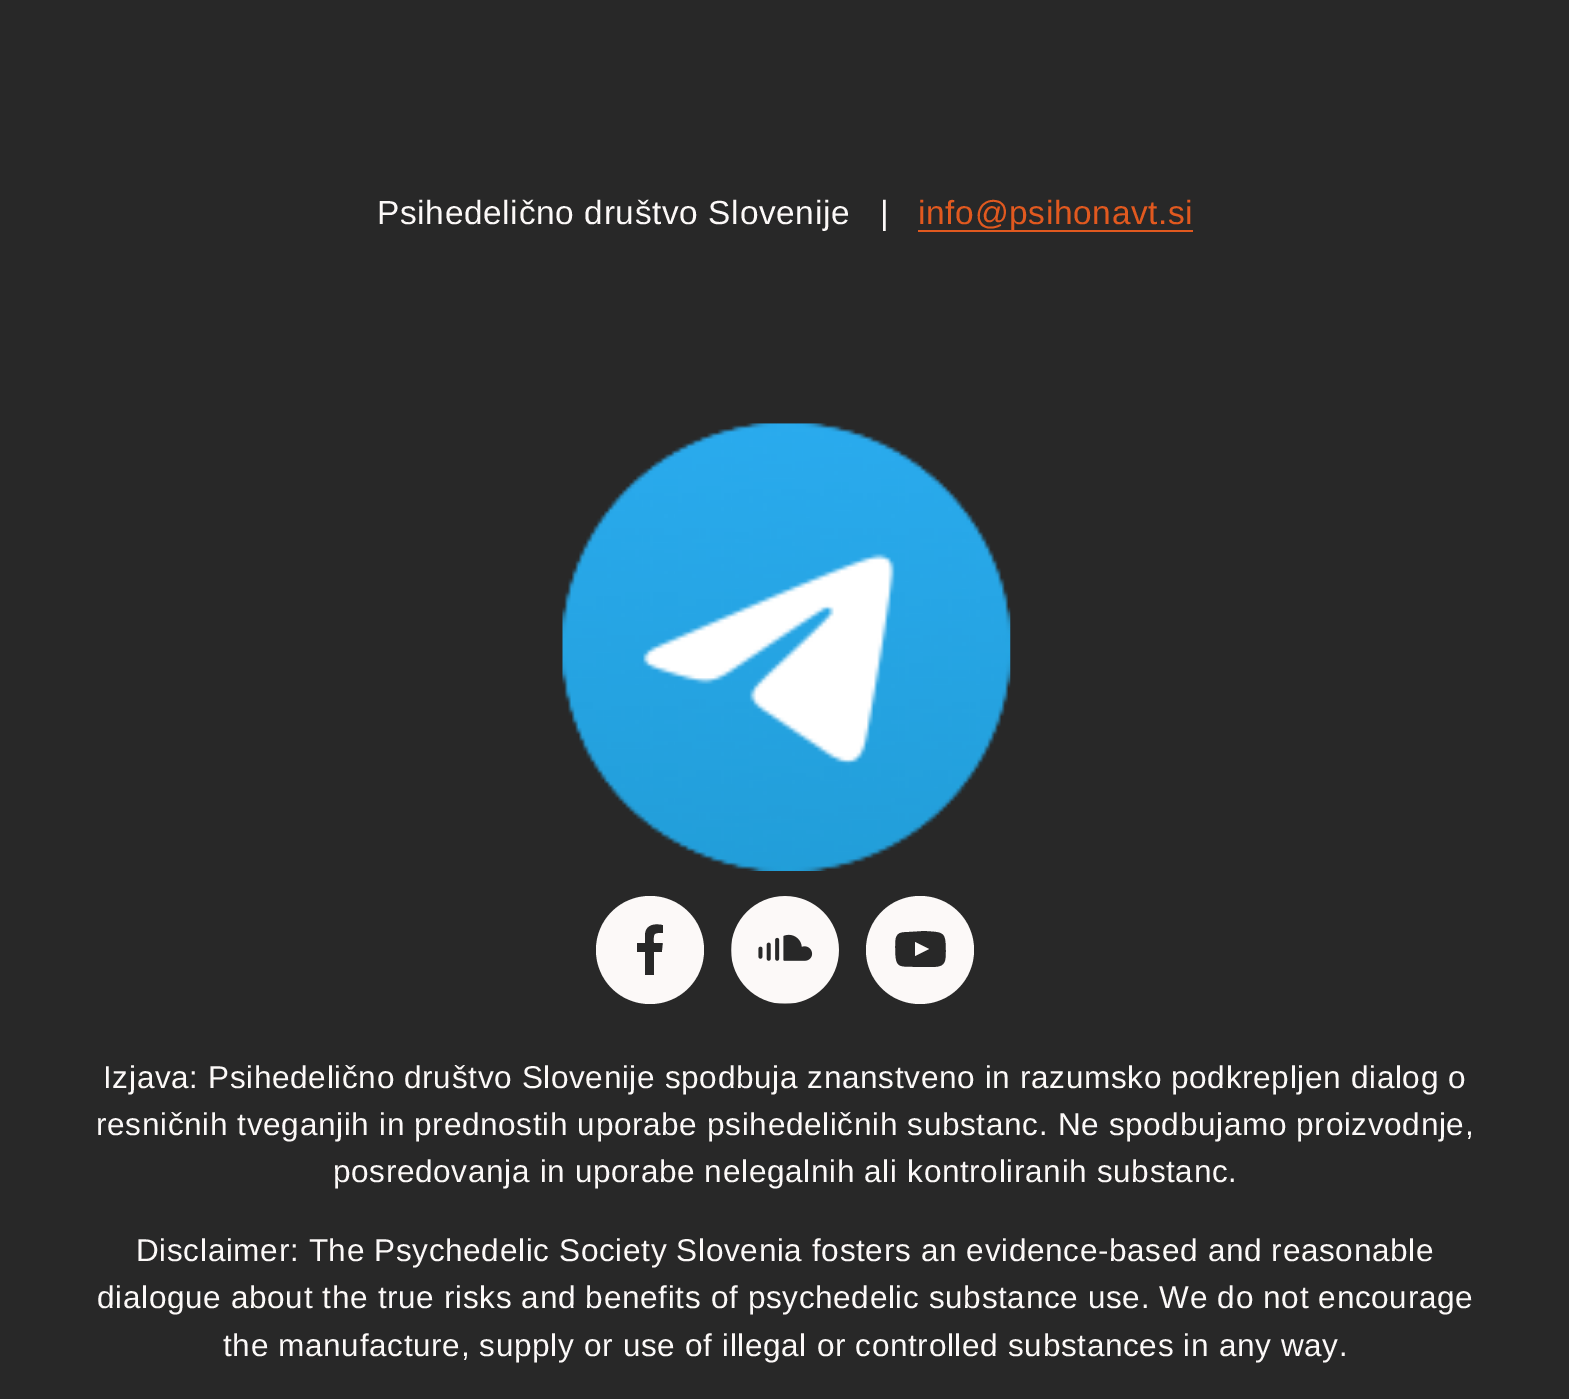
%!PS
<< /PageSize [1569 1399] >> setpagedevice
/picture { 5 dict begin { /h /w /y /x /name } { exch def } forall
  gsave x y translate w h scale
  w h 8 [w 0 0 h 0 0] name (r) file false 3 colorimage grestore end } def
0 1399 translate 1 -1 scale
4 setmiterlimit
0.157 setgray
0 0 1569 1399 rectfill
/LiberationSans-Regular [33.4 0 0 -33.4 0 0] selectfont
0.988 0.976 0.973 setrgbcolor
377 224 moveto 0.67 0 (Psihedelično društvo Slovenije   |) ashow
0.882 0.349 0.122 setrgbcolor
918 230 275 2 rectfill
918 224 moveto 0.67 0 (info@psihonavt.si) ashow
(img1.rgb) 562 423 449 448 picture
0.988 0.976 0.973 setrgbcolor
newpath 650 896 moveto 620 896 596 920 596 950 curveto 596 980 620 1004 650 1004 curveto 680 1004 704 980 704 950 curveto 704 920 680 896 650 896 curveto closepath 663 933 moveto 663 925 lineto 656 923 646 924 645 933 curveto 645 943 lineto 637 943 lineto 637 952 lineto 645 952 lineto 645 975 lineto 654 975 lineto 654 952 lineto 662 952 lineto 663 943 lineto 654 943 lineto 654 934 653 933 663 933 curveto closepath eofill
(img2.rgb) 731 896 108 108 picture
newpath 920 896 moveto 890 896 866 920 866 950 curveto 866 980 890 1004 920 1004 curveto 950 1004 974 980 974 950 curveto 974 920 950 896 920 896 curveto closepath 946 951 moveto 946 932 944 932 927 931 curveto 921 931 lineto 905 932 lineto 895 932 895 938 895 947 curveto 895 967 897 967 913 967 curveto 935 967 lineto 946 967 946 960 946 951 curveto closepath 915 956 moveto 915 942 lineto 929 949 lineto closepath eofill
/LiberationSans-Regular [31.5 0 0 -31.5 0 0] selectfont
103 1088 moveto 0.67 0 (Izjava: Psihedelično društvo Slovenije spodbuja znanstveno in razumsko podkrepljen dialog o) ashow
96 1135 moveto 0.67 0 (resničnih tveganjih in prednostih uporabe psihedeličnih substanc. Ne spodbujamo proizvodnje,) ashow
333 1182 moveto 0.67 0 (posredovanja in uporabe nelegalnih ali kontroliranih substanc.) ashow
136 1261 moveto 0.67 0 (Disclaimer: The Psychedelic Society Slovenia fosters an evidence-based and reasonable) ashow
97 1308 moveto 0.67 0 (dialogue about the true risks and benefits of psychedelic substance use. We do not encourage) ashow
223 1356 moveto 0.67 0 (the manufacture, supply or use of illegal or controlled substances in any way.) ashow
showpage
